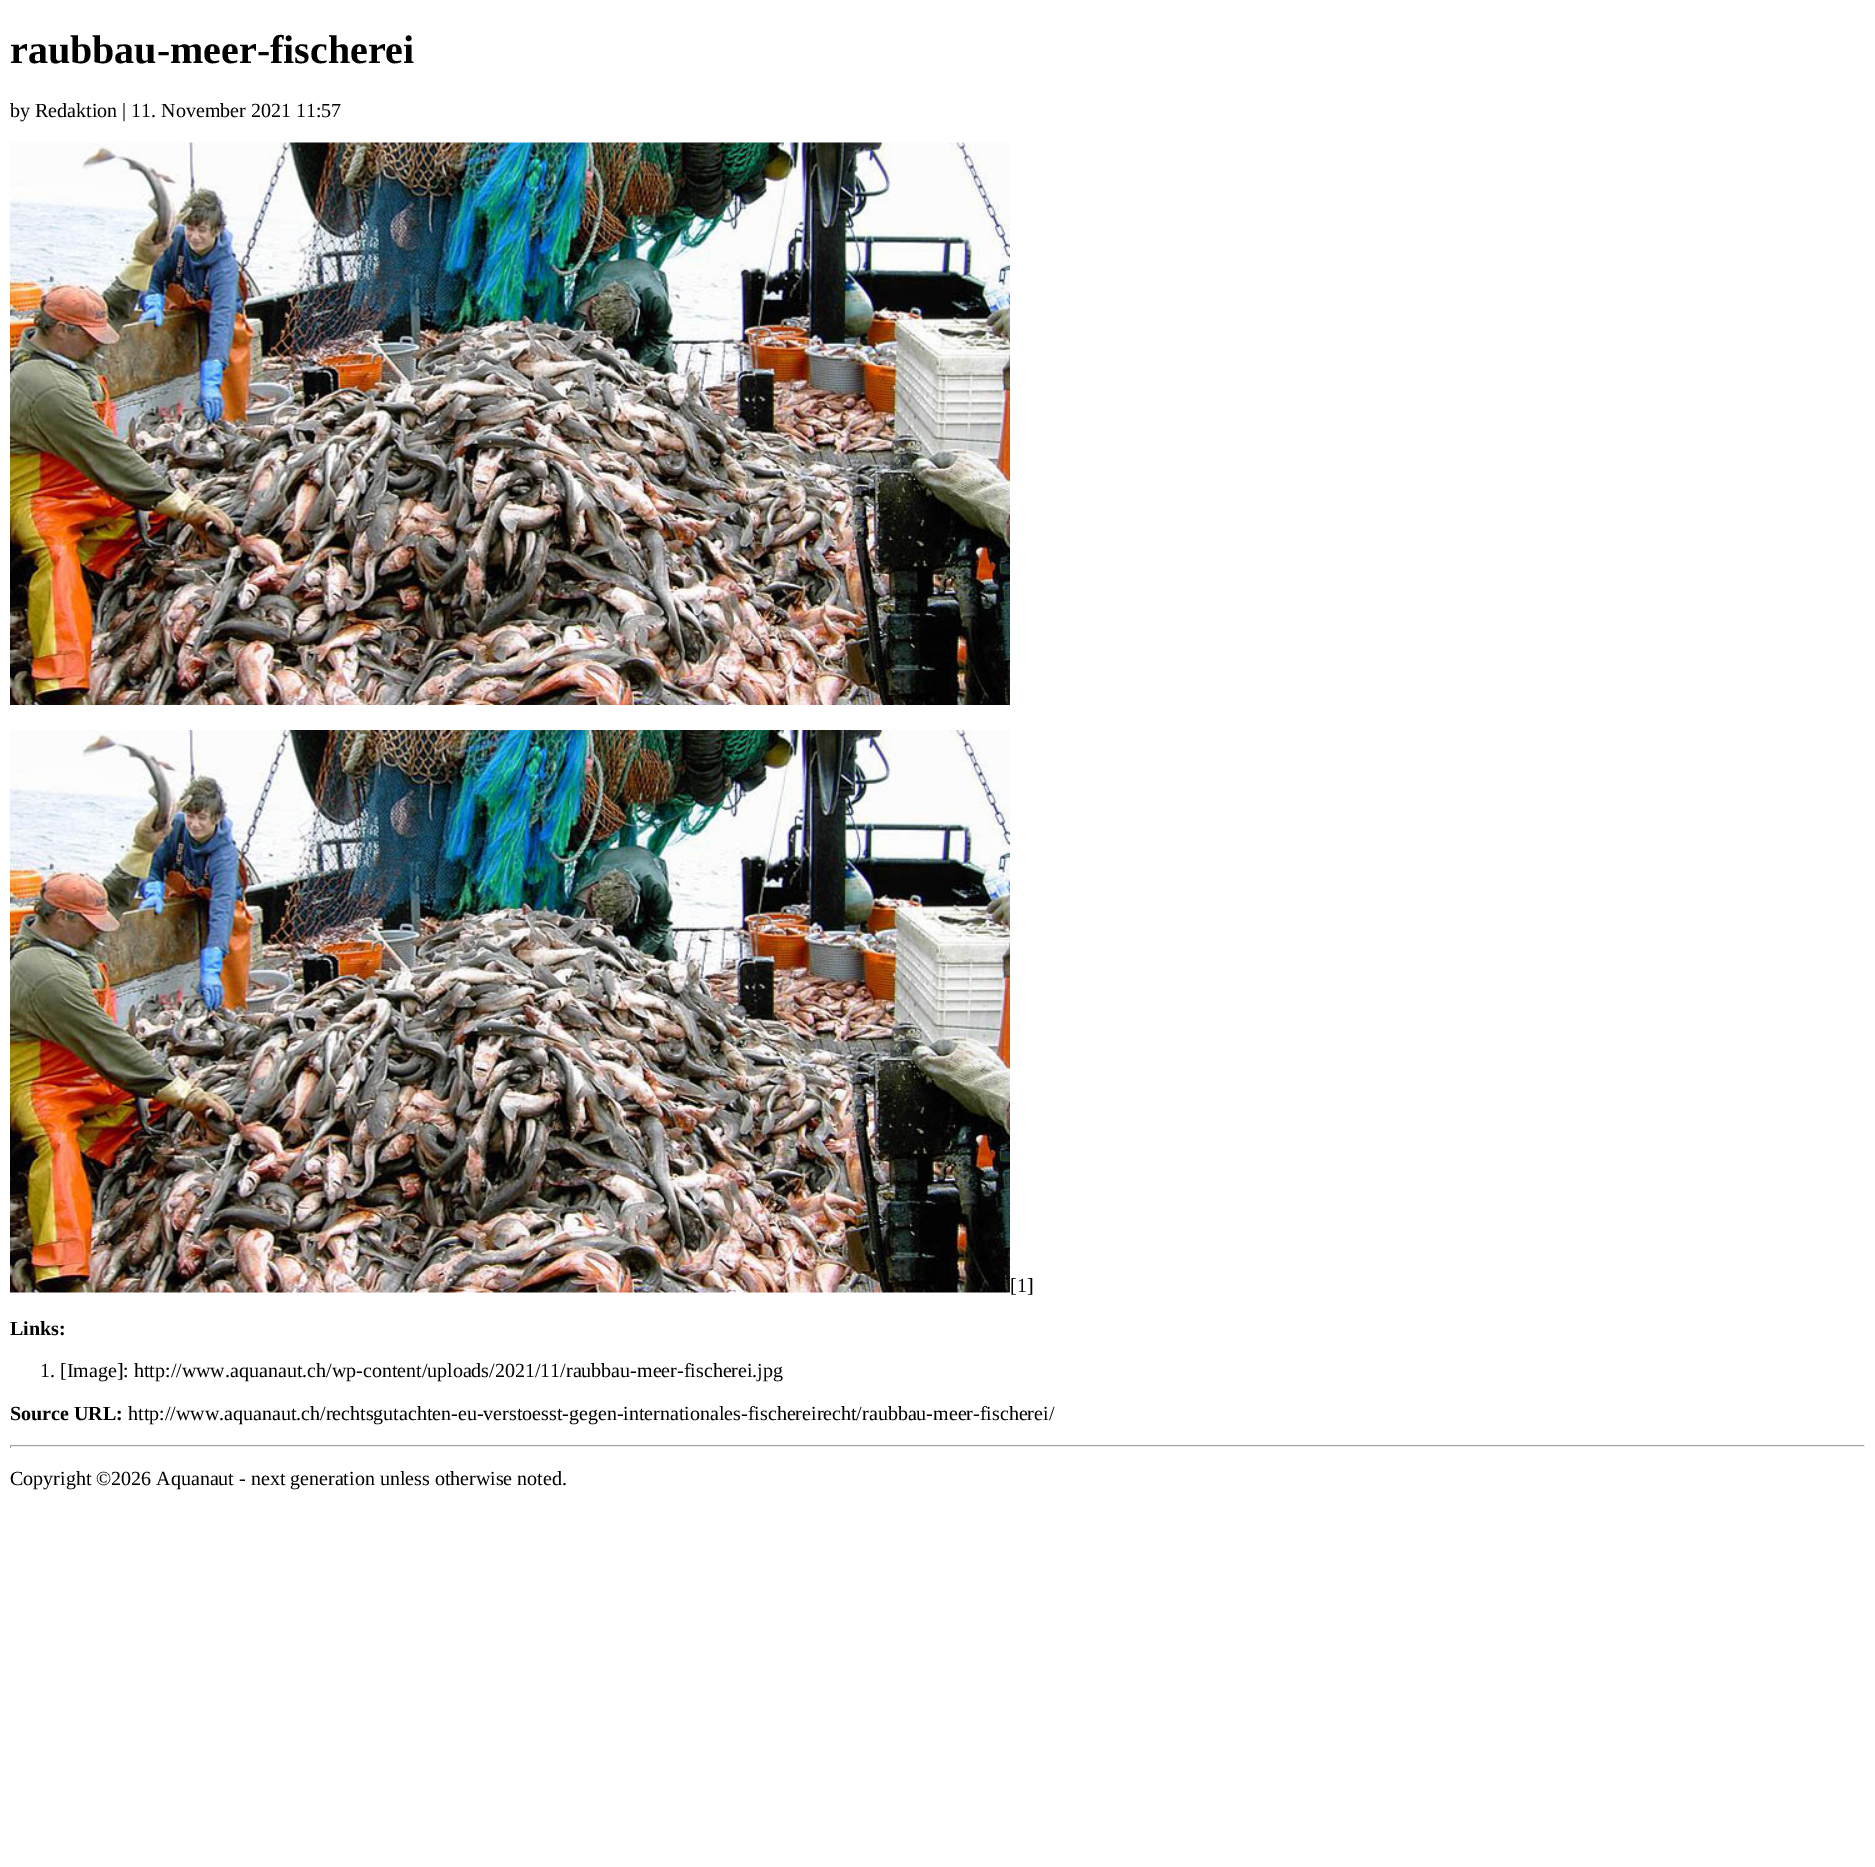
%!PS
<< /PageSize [1875 1867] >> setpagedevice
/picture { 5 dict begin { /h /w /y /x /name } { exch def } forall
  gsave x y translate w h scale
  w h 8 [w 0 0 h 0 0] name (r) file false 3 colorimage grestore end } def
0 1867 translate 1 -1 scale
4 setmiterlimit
1 setgray
0 0 1875 1867 rectfill
/LiberationSerif-Bold [40 0 0 -40 0 0] selectfont
0 setgray
10 63 moveto (raubbau-meer-fischerei) show
/LiberationSerif-Regular [20 0 0 -20 0 0] selectfont
10 117 moveto (by Redaktion | 11. November 2021 11:57) show
(img1.rgb) 10 142 1000 563 picture
(img2.rgb) 10 730 1000 563 picture
1010 1292 moveto ([1]) show
/LiberationSerif-Bold [20 0 0 -20 0 0] selectfont
10 1335 moveto (Links:) show
/LiberationSerif-Regular [20 0 0 -20 0 0] selectfont
40 1377 moveto (1. [Image]: http://www.aquanaut.ch/wp-content/uploads/2021/11/raubbau-meer-fischerei.jpg) show
/LiberationSerif-Bold [20 0 0 -20 0 0] selectfont
10 1420 moveto (Source URL:) show
/LiberationSerif-Regular [20 0 0 -20 0 0] selectfont
128 1420 moveto (http://www.aquanaut.ch/rechtsgutachten-eu-verstoesst-gegen-internationales-fischereirecht/raubbau-meer-fischerei/) show
0.624 setgray
10 1445 1855 1 rectfill
0.933 setgray
1864 1445 1 3 rectfill
10 1446 1855 1 rectfill
0.624 setgray
10 1445 1 3 rectfill
0 setgray
10 1485 moveto (Copyright ©2026 Aquanaut - next generation unless otherwise noted.) show
showpage
